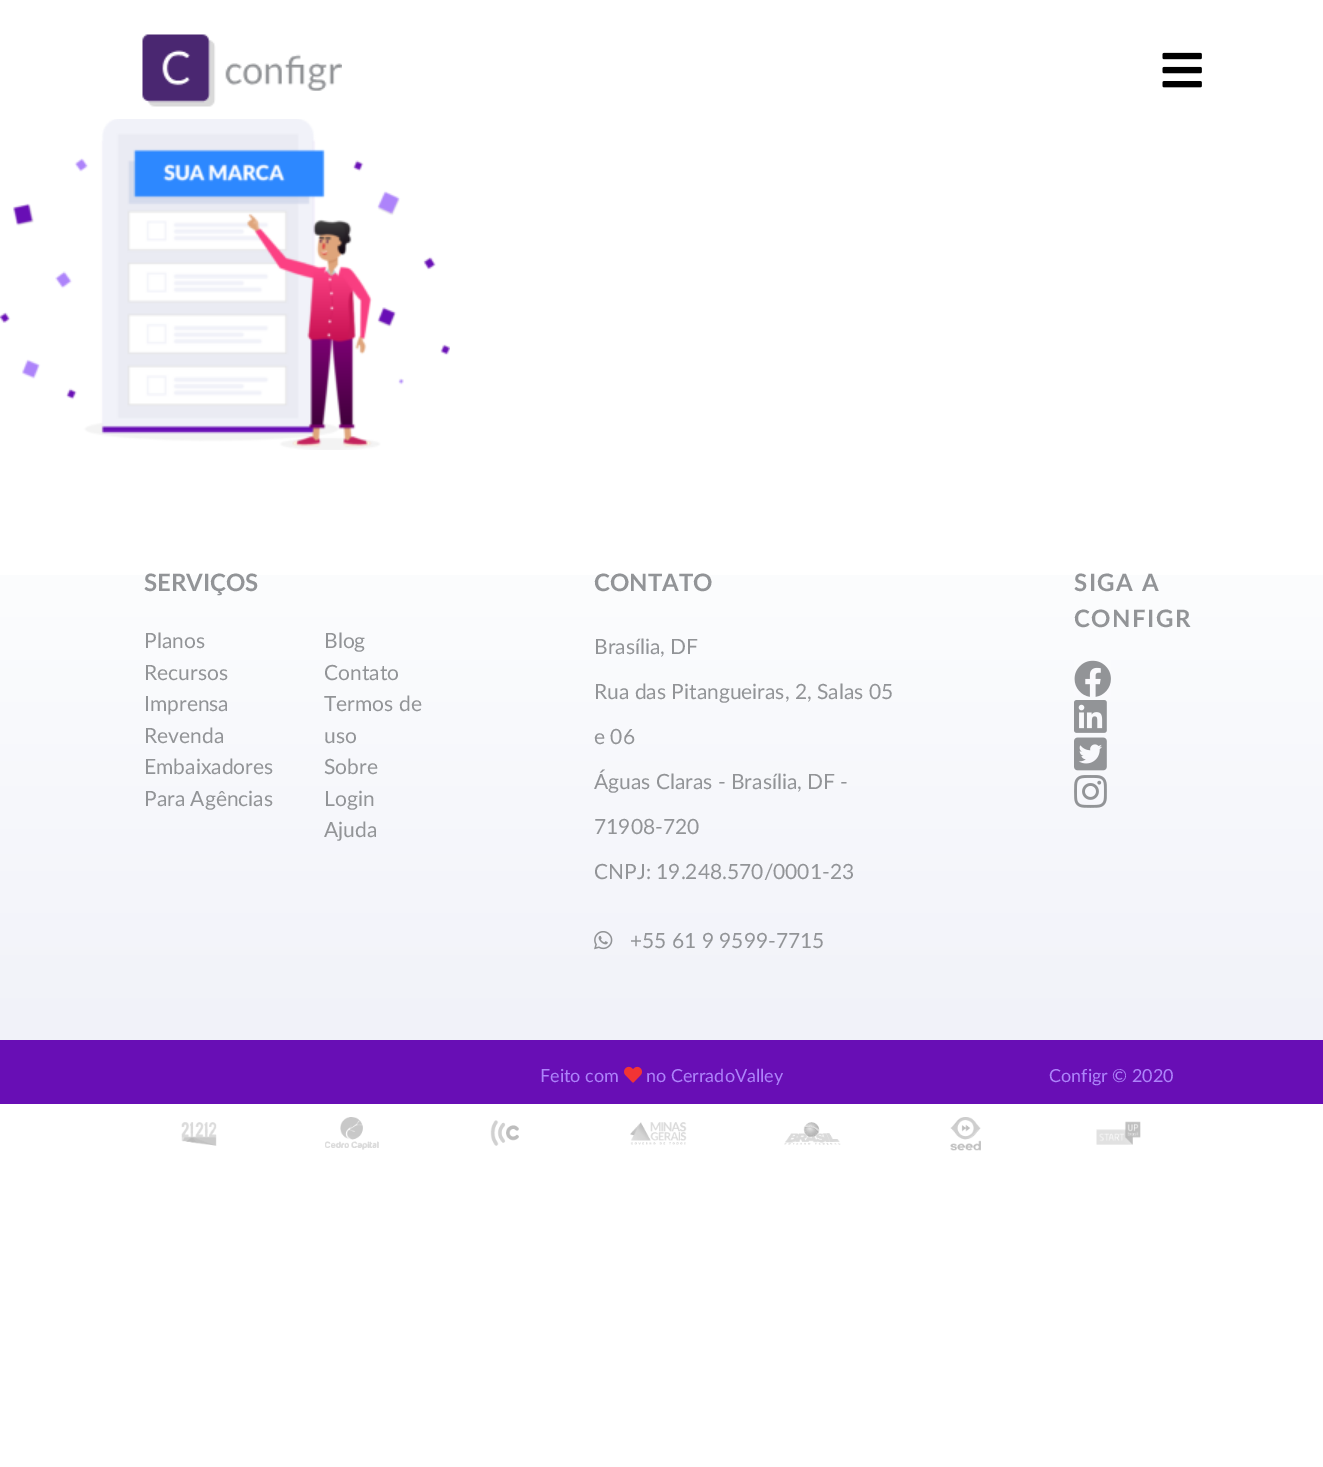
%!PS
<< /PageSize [1323 1467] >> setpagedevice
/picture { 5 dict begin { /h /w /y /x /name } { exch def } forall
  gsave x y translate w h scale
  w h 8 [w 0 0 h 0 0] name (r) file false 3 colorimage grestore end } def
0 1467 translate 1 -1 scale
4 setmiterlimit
1 setgray
0 0 1323 1467 rectfill
(img1.rgb) 142 34 200 73 picture
(img2.rgb) 1162 52 40 36 picture
(img3.rgb) 0 119 450 331 picture
gsave newpath 0 575 moveto 1323 575 lineto 1323 1040 lineto 0 1040 lineto closepath clip newpath
<< /ShadingType 2 /ColorSpace /DeviceRGB /Coords [662 474 662 1040] /Extend [true true] /Function << /FunctionType 2 /Domain [0 1] /C0 [1 1 1] /C1 [0.945 0.949 0.976] /N 1 >> >> shfill grestore
/Lato-Bold [24 0 0 -24 0 0] selectfont
0.573 0.58 0.592 setrgbcolor
144 591 moveto (SERVIÇOS) show
/Lato-Regular [21 0 0 -21 0 0] selectfont
144 648 moveto (Planos) show
144 680 moveto (Recursos) show
144 711 moveto (Imprensa) show
144 743 moveto (Revenda) show
144 774 moveto (Embaixadores) show
144 806 moveto (Para Agências) show
/Lato-Bold [24 0 0 -24 0 0] selectfont
594 591 moveto (CONTATO) show
/Lato-Regular [21 0 0 -21 0 0] selectfont
594 654 moveto (Brasília, DF) show
594 699 moveto (Rua das Pitangueiras, 2, Salas 05) show
594 744 moveto (e 06) show
594 789 moveto (Águas Claras - Brasília, DF -) show
594 834 moveto (71908-720) show
594 879 moveto (CNPJ: 19.248.570/0001-23) show
(img4.rgb) 594 931 19 19 picture
630 948 moveto (+55 61 9 9599-7715) show
/Lato-Bold [24 0 0 -24 0 0] selectfont
1074 591 moveto 1.5 0 (SIGA A) ashow
1074 627 moveto 1.5 0 (CONFIGR) ashow
(img5.rgb) 1074 660 37 37 picture
(img6.rgb) 1074 700 33 33 picture
(img7.rgb) 1074 737 33 34 picture
(img8.rgb) 1074 775 33 33 picture
/Lato-Regular [21 0 0 -21 0 0] selectfont
324 648 moveto (Blog) show
324 680 moveto (Contato) show
324 711 moveto (Termos de) show
324 743 moveto (uso) show
324 774 moveto (Sobre) show
324 806 moveto (Login) show
324 837 moveto (Ajuda) show
0.408 0.055 0.71 setrgbcolor
0 1040 1323 64 rectfill
/Lato-Regular [18 0 0 -18 0 0] selectfont
0.678 0.514 0.98 setrgbcolor
540 1082 moveto (Feito com) show
(img9.rgb) 624 1066 18 17 picture
646 1082 moveto (no CerradoValley) show
1049 1082 moveto (Configr © 2020) show
(img10.rgb) 181 1122 36 24 picture
(img11.rgb) 325 1117 54 33 picture
(img12.rgb) 490 1120 29 26 picture
(img13.rgb) 630 1122 57 23 picture
(img14.rgb) 784 1122 57 23 picture
(img15.rgb) 950 1117 31 34 picture
(img16.rgb) 1096 1121 45 24 picture
showpage
